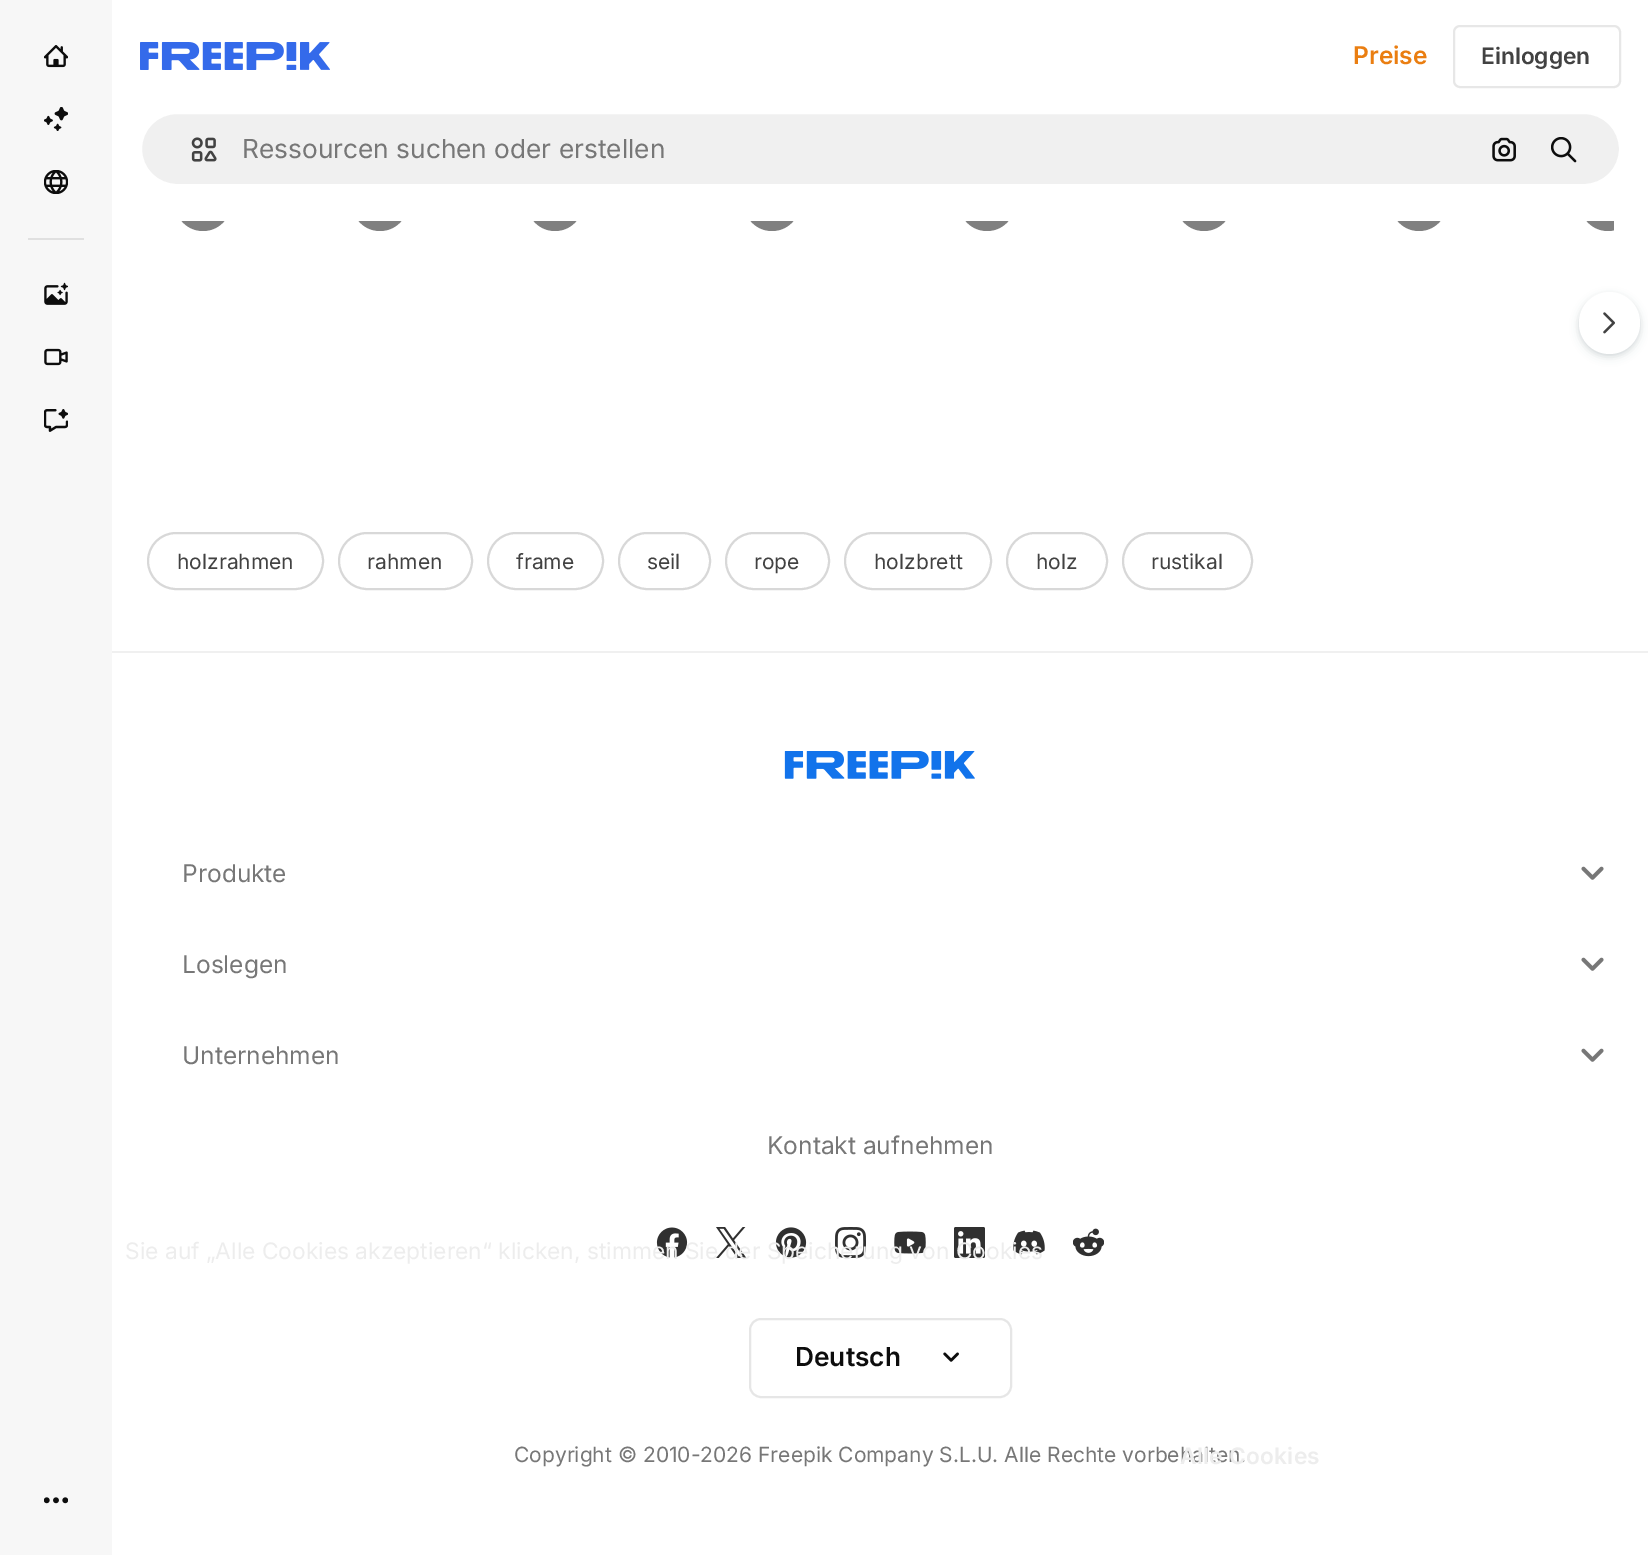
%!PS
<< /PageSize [1648 1555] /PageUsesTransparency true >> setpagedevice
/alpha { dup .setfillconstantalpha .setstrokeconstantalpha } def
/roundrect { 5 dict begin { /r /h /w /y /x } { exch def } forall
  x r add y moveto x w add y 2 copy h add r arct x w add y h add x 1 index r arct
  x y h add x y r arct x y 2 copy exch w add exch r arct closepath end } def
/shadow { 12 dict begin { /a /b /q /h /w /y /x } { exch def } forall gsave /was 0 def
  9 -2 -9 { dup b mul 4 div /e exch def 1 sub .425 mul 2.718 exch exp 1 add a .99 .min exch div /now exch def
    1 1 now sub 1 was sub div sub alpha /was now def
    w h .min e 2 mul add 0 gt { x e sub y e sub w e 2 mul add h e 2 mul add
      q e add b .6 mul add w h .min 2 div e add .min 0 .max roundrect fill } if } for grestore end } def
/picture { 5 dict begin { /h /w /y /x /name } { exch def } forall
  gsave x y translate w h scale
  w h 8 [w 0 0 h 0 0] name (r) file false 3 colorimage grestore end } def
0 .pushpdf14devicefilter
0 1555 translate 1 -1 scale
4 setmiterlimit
1 setgray
0 0 1648 1555 rectfill
0.969 setgray
0 0 112 1555 rectfill
(img1.rgb) 44 45 24 23 picture
(img2.rgb) 44 107 24 24 picture
(img3.rgb) 44 170 24 24 picture
0.878 setgray
28 238 56 2 rectfill
(img4.rgb) 44 282 24 23 picture
(img5.rgb) 44 348 24 18 picture
(img6.rgb) 44 409 24 23 picture
(img7.rgb) 44 1497 24 7 picture
0.502 setgray
newpath 203 203 28 0 360 arc closepath fill
newpath 380 203 28 0 360 arc closepath fill
newpath 555 203 28 0 360 arc closepath fill
newpath 772 203 28 0 360 arc closepath fill
newpath 987 203 28 0 360 arc closepath fill
newpath 1204 203 28 0 360 arc closepath fill
newpath 1419 203 28 0 360 arc closepath fill
gsave
147 147 1467 350 rectclip
newpath 1608 203 28 0 360 arc closepath fill
grestore
1 setgray
175 175 1439 46 rectfill
(img8.rgb) 140 42 190 28 picture
/Inter-SemiBold [24.5 0 0 -24.5 0 0] selectfont
0.918 0.494 0.067 setrgbcolor
1353 64 moveto (Preise) show
0.906 setgray
2 setlinewidth
1454 26 166 61 6 roundrect stroke
/Inter-SemiBold [22.75 0 0 -22.75 0 0] selectfont
0.259 setgray
1481 64 moveto (Einloggen) show
0.941 setgray
141 113 1479 72 36 roundrect gsave fill grestore
1 setgray
stroke
(img9.rgb) 191 137 26 25 picture
/Inter-Regular [26.25 0 0 -26.25 0 0] selectfont
0.467 setgray
242 158 moveto (Ressourcen suchen oder erstellen) show
(img10.rgb) 1492 137 24 25 picture
(img11.rgb) 1551 137 26 26 picture
0.216 0.286 0.341 setrgbcolor
1579 296 61 61 30.5 4.5 0.15 shadow
1579 294 61 61 30.5 2 0.1 shadow
1 setgray
1579 292 61 62 30.5 roundrect fill
(img12.rgb) 1603 312 12 22 picture
0.847 setgray
148 533 175 56 28 roundrect stroke
/Inter-Regular [21 0 0 -21 0 0] selectfont
0.259 setgray
177 569 moveto (holzrahmen) show
0.847 setgray
339 533 133 56 28 roundrect stroke
0.259 setgray
367 569 moveto (rahmen) show
0.847 setgray
488 533 115 56 28 roundrect stroke
0.259 setgray
516 569 moveto (frame) show
0.847 setgray
619 533 91 56 28 roundrect stroke
0.259 setgray
647 569 moveto (seil) show
0.847 setgray
726 533 103 56 28 roundrect stroke
0.259 setgray
754 569 moveto (rope) show
0.847 setgray
845 533 146 56 28 roundrect stroke
0.259 setgray
874 569 moveto (holzbrett) show
0.847 setgray
1007 533 100 56 28 roundrect stroke
0.259 setgray
1036 569 moveto (holz) show
0.847 setgray
1123 533 129 56 28 roundrect stroke
0.259 setgray
1151 569 moveto (rustikal) show
0.941 setgray
112 651 1536 2 rectfill
(img13.rgb) 784 751 191 28 picture
/Inter-Regular [24.5 0 0 -24.5 0 0] selectfont
0.467 setgray
182 882 moveto (Produkte) show
(img14.rgb) 1581 866 23 14 picture
182 973 moveto (Loslegen) show
(img14.rgb) 1581 957 23 14 picture
182 1064 moveto (Unternehmen) show
(img14.rgb) 1581 1048 23 14 picture
767 1154 moveto (Kontakt aufnehmen) show
(img15.rgb) 656 1227 32 31 picture
(img16.rgb) 716 1227 31 31 picture
(img17.rgb) 775 1227 32 31 picture
(img18.rgb) 835 1227 31 31 picture
(img19.rgb) 894 1231 32 23 picture
(img20.rgb) 954 1227 31 31 picture
(img21.rgb) 1013 1230 32 25 picture
(img22.rgb) 1073 1228 31 29 picture
0.902 setgray
750 1319 261 78 11 roundrect stroke
/Inter-SemiBold [26.25 0 0 -26.25 0 0] selectfont
0.051 setgray
795 1366 moveto (Deutsch) show
(img23.rgb) 943 1352 16 10 picture
/Inter-Regular [21 0 0 -21 0 0] selectfont
0.467 setgray
514 1462 moveto (Copyright © 2010-2026 Freepik Company S.L.U. Alle Rechte vorbehalten.) show
/Inter-Regular [22.75 0 0 -22.75 0 0] selectfont
0.929 setgray
125 1259 moveto (Sie auf „Alle Cookies akzeptieren“ klicken, stimmen Sie der Speicherung von Cookies) show
/Inter-SemiBold [22.75 0 0 -22.75 0 0] selectfont
1180 1464 moveto 0.25 0 (Alle Cookies) ashow
.poppdf14devicefilter showpage
